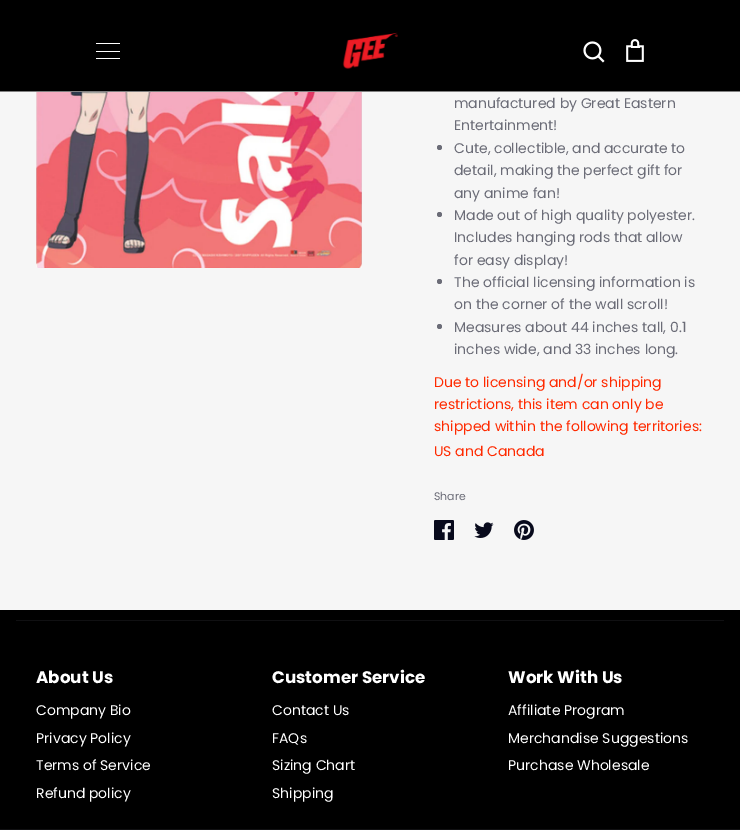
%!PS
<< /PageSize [740 830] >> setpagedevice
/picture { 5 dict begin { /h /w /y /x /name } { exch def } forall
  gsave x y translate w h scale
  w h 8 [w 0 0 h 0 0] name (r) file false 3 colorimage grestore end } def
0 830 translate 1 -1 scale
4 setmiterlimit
0.965 setgray
0 0 740 830 rectfill
0 setgray
0 0 740 91 rectfill
0.502 setgray
0 91 740 1 rectfill
1 setgray
96 43 24 1 rectfill
96 51 24 1 rectfill
96 58 24 1 rectfill
(img1.rgb) 342 32 56 37 picture
(img2.rgb) 583 41 22 22 picture
(img3.rgb) 626 39 18 23 picture
0.063 0.063 0.071 setrgbcolor
0 829 740 1 rectfill
(img4.rgb) 36 92 326 176 picture
/Poppins-Regular [14 0 0 -14 0 0] selectfont
0.42 0.424 0.467 setrgbcolor
454 108 moveto (manufactured by Great Eastern) show
454 130 moveto (Entertainment!) show
newpath 439.5 147.5 2.5 0 360 arc closepath fill
454 153 moveto (Cute, collectible, and accurate to) show
454 175 moveto (detail, making the perfect gift for) show
454 198 moveto (any anime fan!) show
newpath 439.5 214.5 2.5 0 360 arc closepath fill
454 220 moveto (Made out of high quality polyester.) show
454 242 moveto (Includes hanging rods that allow) show
454 265 moveto (for easy display!) show
newpath 439.5 281.5 2.5 0 360 arc closepath fill
454 287 moveto (The official licensing information is) show
454 309 moveto (on the corner of the wall scroll!) show
newpath 439.5 326.5 2.5 0 360 arc closepath fill
454 332 moveto (Measures about 44 inches tall, 0.1) show
454 354 moveto (inches wide, and 33 inches long.) show
1 0.165 0 setrgbcolor
434 387 moveto (Due to licensing and/or shipping) show
434 409 moveto (restrictions, this item can only be) show
434 431 moveto (shipped within the following territories:) show
434 456 moveto (US and Canada) show
/Poppins-Regular [11 0 0 -11 0 0] selectfont
0.42 0.424 0.467 setrgbcolor
434 500 moveto (Share) show
(img5.rgb) 434 520 20 20 picture
(img6.rgb) 474 522 20 16 picture
(img7.rgb) 514 520 20 20 picture
0 setgray
0 610 740 219 rectfill
0.063 0.063 0.071 setrgbcolor
16 620 708 1 rectfill
/Poppins-Bold [16.75 0 0 -16.75 0 0] selectfont
1 setgray
36 683 moveto (About Us) show
/Poppins-Regular [14 0 0 -14 0 0] selectfont
36 715 moveto (Company Bio) show
36 743 moveto (Privacy Policy) show
36 770 moveto (Terms of Service) show
36 798 moveto (Refund policy) show
/Poppins-Bold [16.75 0 0 -16.75 0 0] selectfont
272 683 moveto (Customer Service) show
/Poppins-Regular [14 0 0 -14 0 0] selectfont
272 715 moveto (Contact Us) show
272 743 moveto (FAQs) show
272 770 moveto (Sizing Chart) show
272 798 moveto (Shipping) show
/Poppins-Bold [16.75 0 0 -16.75 0 0] selectfont
508 683 moveto (Work With Us) show
/Poppins-Regular [14 0 0 -14 0 0] selectfont
508 715 moveto (Affiliate Program) show
508 743 moveto (Merchandise Suggestions) show
508 770 moveto (Purchase Wholesale) show
showpage
